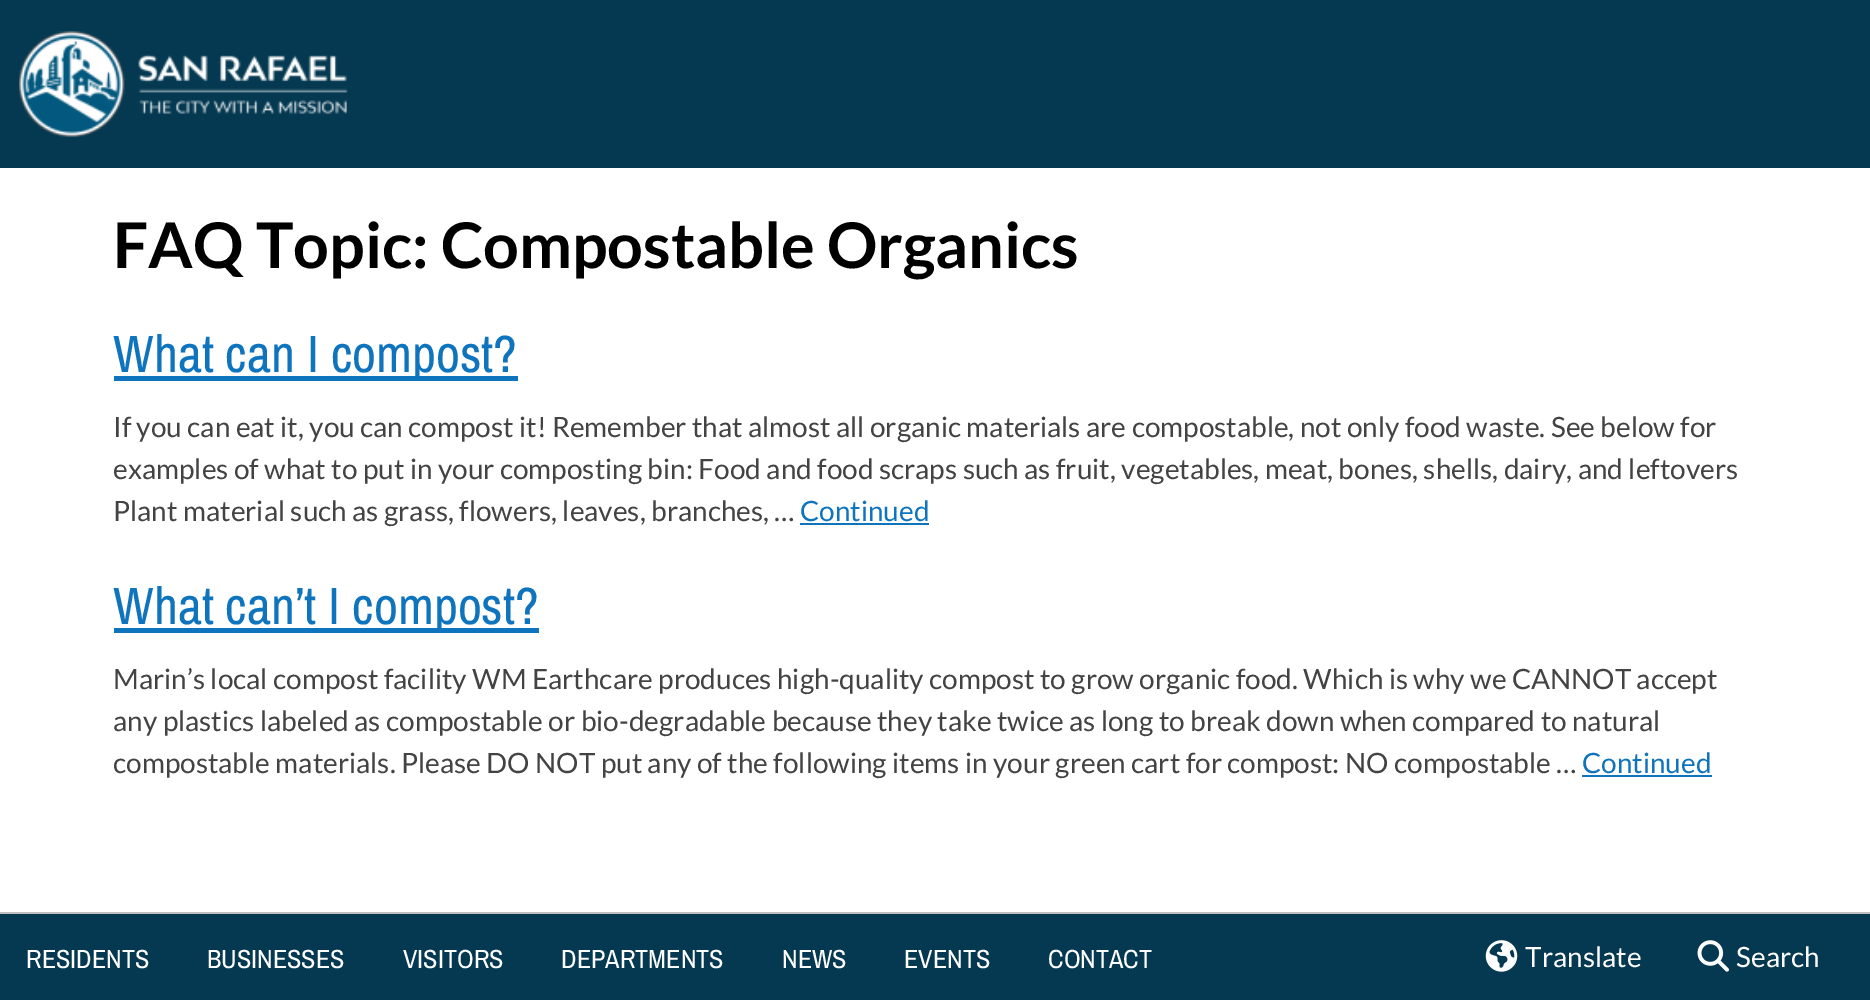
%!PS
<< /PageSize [1870 1000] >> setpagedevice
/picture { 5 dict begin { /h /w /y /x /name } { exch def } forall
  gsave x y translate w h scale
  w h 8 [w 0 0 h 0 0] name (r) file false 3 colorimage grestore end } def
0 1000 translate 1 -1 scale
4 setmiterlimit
1 setgray
0 0 1870 1000 rectfill
/Lato-Bold [63 0 0 -63 0 0] selectfont
0 setgray
113 268 moveto (FAQ Topic: Compostable Organics) show
0.059 0.455 0.745 setrgbcolor
114 376 404 5 rectfill
/ArchivoNarrow-Regular [52.5 0 0 -52.5 0 0] selectfont
113 372 moveto (What can I compost?) show
/Lato-Regular [28 0 0 -28 0 0] selectfont
0.263 setgray
113 437 moveto (If you can eat it, you can compost it! Remember that almost all organic materials are compostable, not only food waste. See below for) show
113 479 moveto (examples of what to put in your composting bin: Food and food scraps such as fruit, vegetables, meat, bones, shells, dairy, and leftovers) show
113 521 moveto (Plant material such as grass, flowers, leaves, branches, …) show
0.059 0.455 0.745 setrgbcolor
800 521 moveto (Continued) show
800 523 129 2 rectfill
114 628 425 5 rectfill
/ArchivoNarrow-Regular [52.5 0 0 -52.5 0 0] selectfont
113 624 moveto (What can’t I compost?) show
/Lato-Regular [28 0 0 -28 0 0] selectfont
0.263 setgray
113 689 moveto (Marin’s local compost facility WM Earthcare produces high-quality compost to grow organic food. Which is why we CANNOT accept) show
113 731 moveto (any plastics labeled as compostable or bio-degradable because they take twice as long to break down when compared to natural) show
113 773 moveto (compostable materials. Please DO NOT put any of the following items in your green cart for compost: NO compostable …) show
0.059 0.455 0.745 setrgbcolor
1582 773 moveto (Continued) show
1582 775 130 2 rectfill
0.02 0.224 0.318 setrgbcolor
0 0 1870 168 rectfill
(img1.rgb) 19 31 329 106 picture
0 914 1870 86 rectfill
0.749 setgray
0 912 1870 2 rectfill
/ArchivoNarrow-Regular [26.25 0 0 -26.25 0 0] selectfont
1 setgray
26 968 moveto (RESIDENTS) show
207 968 moveto (BUSINESSES) show
403 968 moveto (VISITORS) show
561 968 moveto (DEPARTMENTS) show
782 968 moveto (NEWS) show
904 968 moveto (EVENTS) show
1048 968 moveto (CONTACT) show
(img2.rgb) 1485 940 33 32 picture
/Lato-Regular [28 0 0 -28 0 0] selectfont
1525 967 moveto (Translate) show
(img3.rgb) 1697 940 32 32 picture
1736 967 moveto (Search) show
showpage
